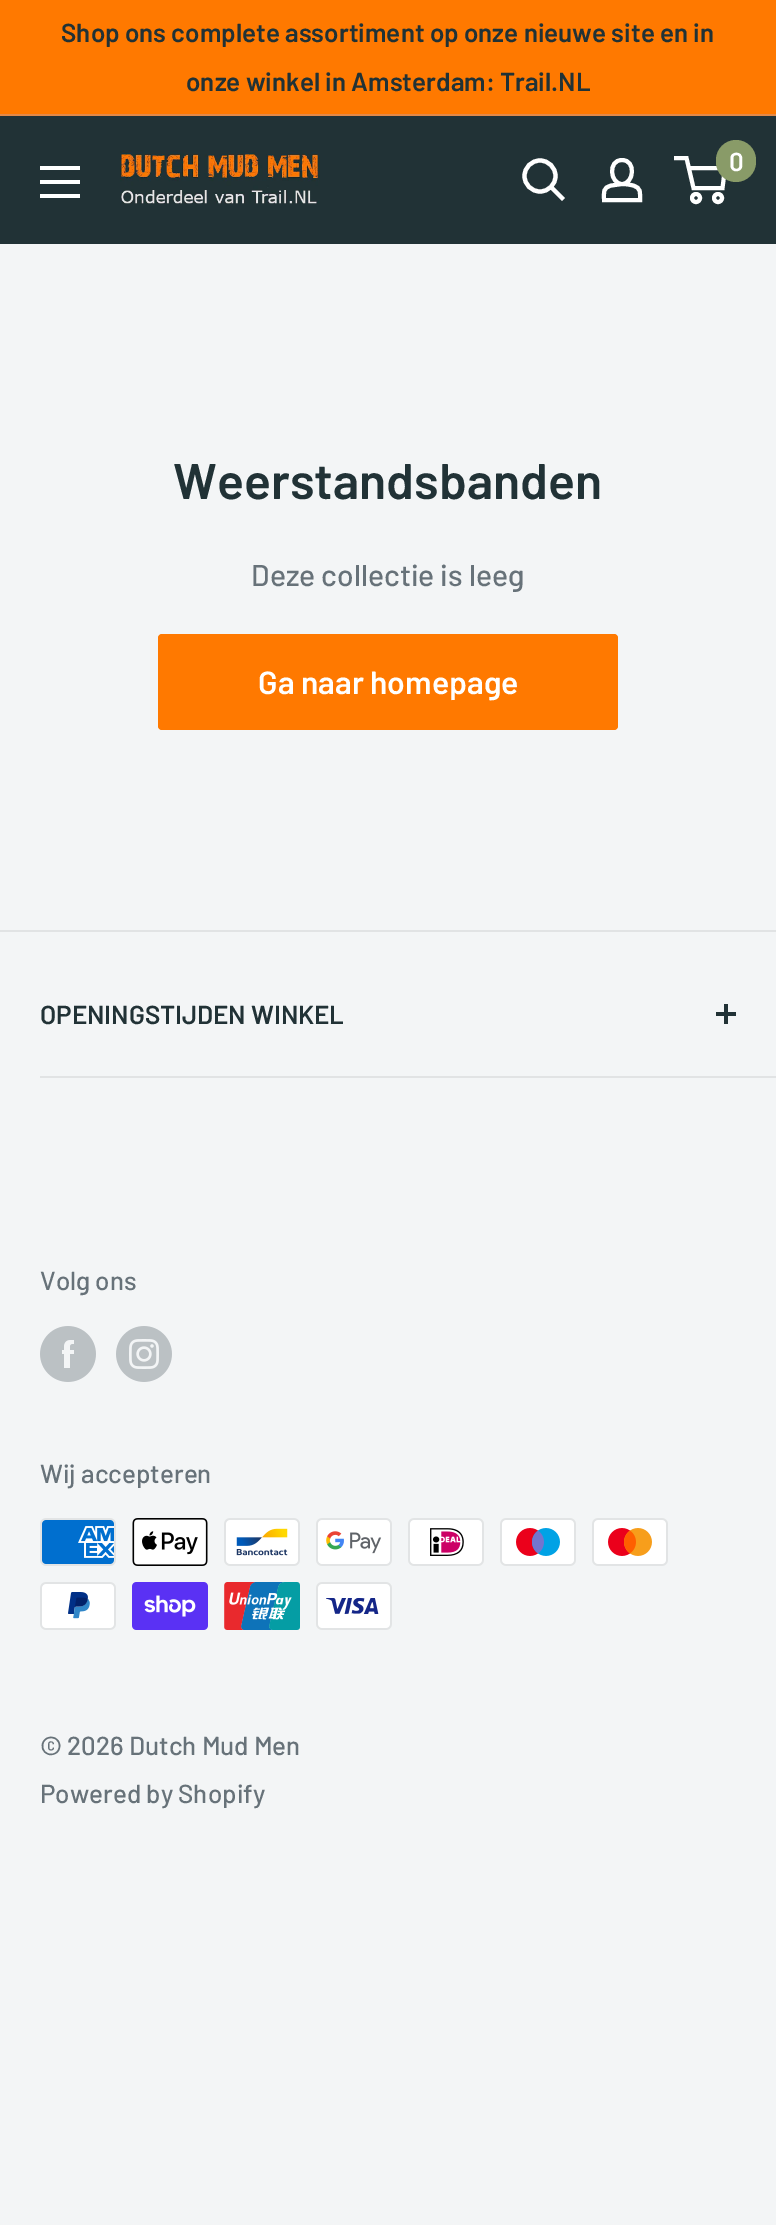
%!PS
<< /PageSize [776 2225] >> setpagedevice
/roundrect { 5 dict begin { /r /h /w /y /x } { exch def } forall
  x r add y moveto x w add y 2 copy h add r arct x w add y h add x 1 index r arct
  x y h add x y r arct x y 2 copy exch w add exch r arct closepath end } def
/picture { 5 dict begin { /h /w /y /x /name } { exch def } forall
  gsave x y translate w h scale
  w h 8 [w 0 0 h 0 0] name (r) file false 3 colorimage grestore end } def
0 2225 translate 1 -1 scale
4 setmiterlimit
0.953 0.961 0.965 setrgbcolor
0 0 776 2225 rectfill
1 0.475 0 setrgbcolor
0 0 776 114 rectfill
0.89 0.537 0.282 setrgbcolor
0 114 776 2 rectfill
/Barlow-SemiBold [26 0 0 -26 0 0] selectfont
0.129 0.196 0.212 setrgbcolor
61 42 moveto (Shop ons complete assortiment op onze nieuwe site en in) show
186 91 moveto (onze winkel in Amsterdam: Trail.NL) show
0 116 776 128 rectfill
(img1.rgb) 120 150 200 54 picture
1 setgray
4.2 setlinewidth
2 setlinecap
newpath 562 198 moveto 551.5 187.5 lineto stroke
0 setlinecap
newpath 540 176 15.5 0 360 arc closepath stroke
4 setlinewidth
newpath 622 184 moveto 626 184 629.5 184.5 633 185.5 curveto 641.5 188 640 192.5 640 200 curveto 604 200 lineto 604 192 602.5 187.5 611.5 185.5 curveto closepath 622 184 moveto 610 184 607.5 160 622 160 curveto 636.5 160 634 184 622 184 curveto closepath stroke
newpath 696 198 4 0 360 arc closepath stroke
newpath 718 198 4 0 360 arc closepath stroke
newpath 688.5 168 moveto 725 168 lineto 722.5 188 lineto 693.5 188 lineto 686.5 158 lineto 674 158 lineto stroke
0.537 0.608 0.408 setrgbcolor
716 140 40 42 20 roundrect fill
1 setgray
729 171 moveto (0) show
newpath 40 194 moveto 80 194 lineto 80 198 lineto 40 198 lineto closepath 40 166 moveto 80 166 lineto 80 170 lineto 40 170 lineto closepath 40 180 moveto 80 180 lineto 80 184 lineto 40 184 lineto closepath eofill
/Barlow-SemiBold [50 0 0 -50 0 0] selectfont
0.129 0.196 0.212 setrgbcolor
173 499 moveto (Weerstandsbanden) show
/Barlow-Medium [30 0 0 -30 0 0] selectfont
0.404 0.447 0.475 setrgbcolor
251 586 moveto (Deze collectie is leeg) show
1 0.475 0 setrgbcolor
158 634 460 96 4 roundrect fill
/Barlow-SemiBold [32 0 0 -32 0 0] selectfont
1 setgray
258 694 moveto (Ga naar homepage) show
0.882 0.89 0.894 setrgbcolor
0 930 776 2 rectfill
40 1076 736 2 rectfill
/Barlow-SemiBold [26 0 0 -26 0 0] selectfont
0.129 0.196 0.212 setrgbcolor
40 1024 moveto (OPENINGSTIJDEN WINKEL) show
724 1004 4 20 rectfill
716 1012 20 4 rectfill
/Barlow-Medium [26 0 0 -26 0 0] selectfont
0.404 0.447 0.475 setrgbcolor
40 1290 moveto (Volg ons) show
(img2.rgb) 40 1326 56 56 picture
(img3.rgb) 116 1326 56 56 picture
40 1483 moveto (Wij accepteren) show
(img4.rgb) 40 1518 76 48 picture
(img5.rgb) 132 1518 76 48 picture
(img6.rgb) 224 1518 76 48 picture
(img7.rgb) 316 1518 76 48 picture
(img8.rgb) 408 1518 76 48 picture
(img9.rgb) 500 1518 76 48 picture
(img10.rgb) 592 1518 76 48 picture
(img11.rgb) 40 1582 76 48 picture
(img12.rgb) 132 1582 76 48 picture
(img13.rgb) 224 1582 76 48 picture
(img14.rgb) 316 1582 76 48 picture
40 1755 moveto (© 2026 Dutch Mud Men) show
40 1803 moveto (Powered by Shopify) show
showpage
